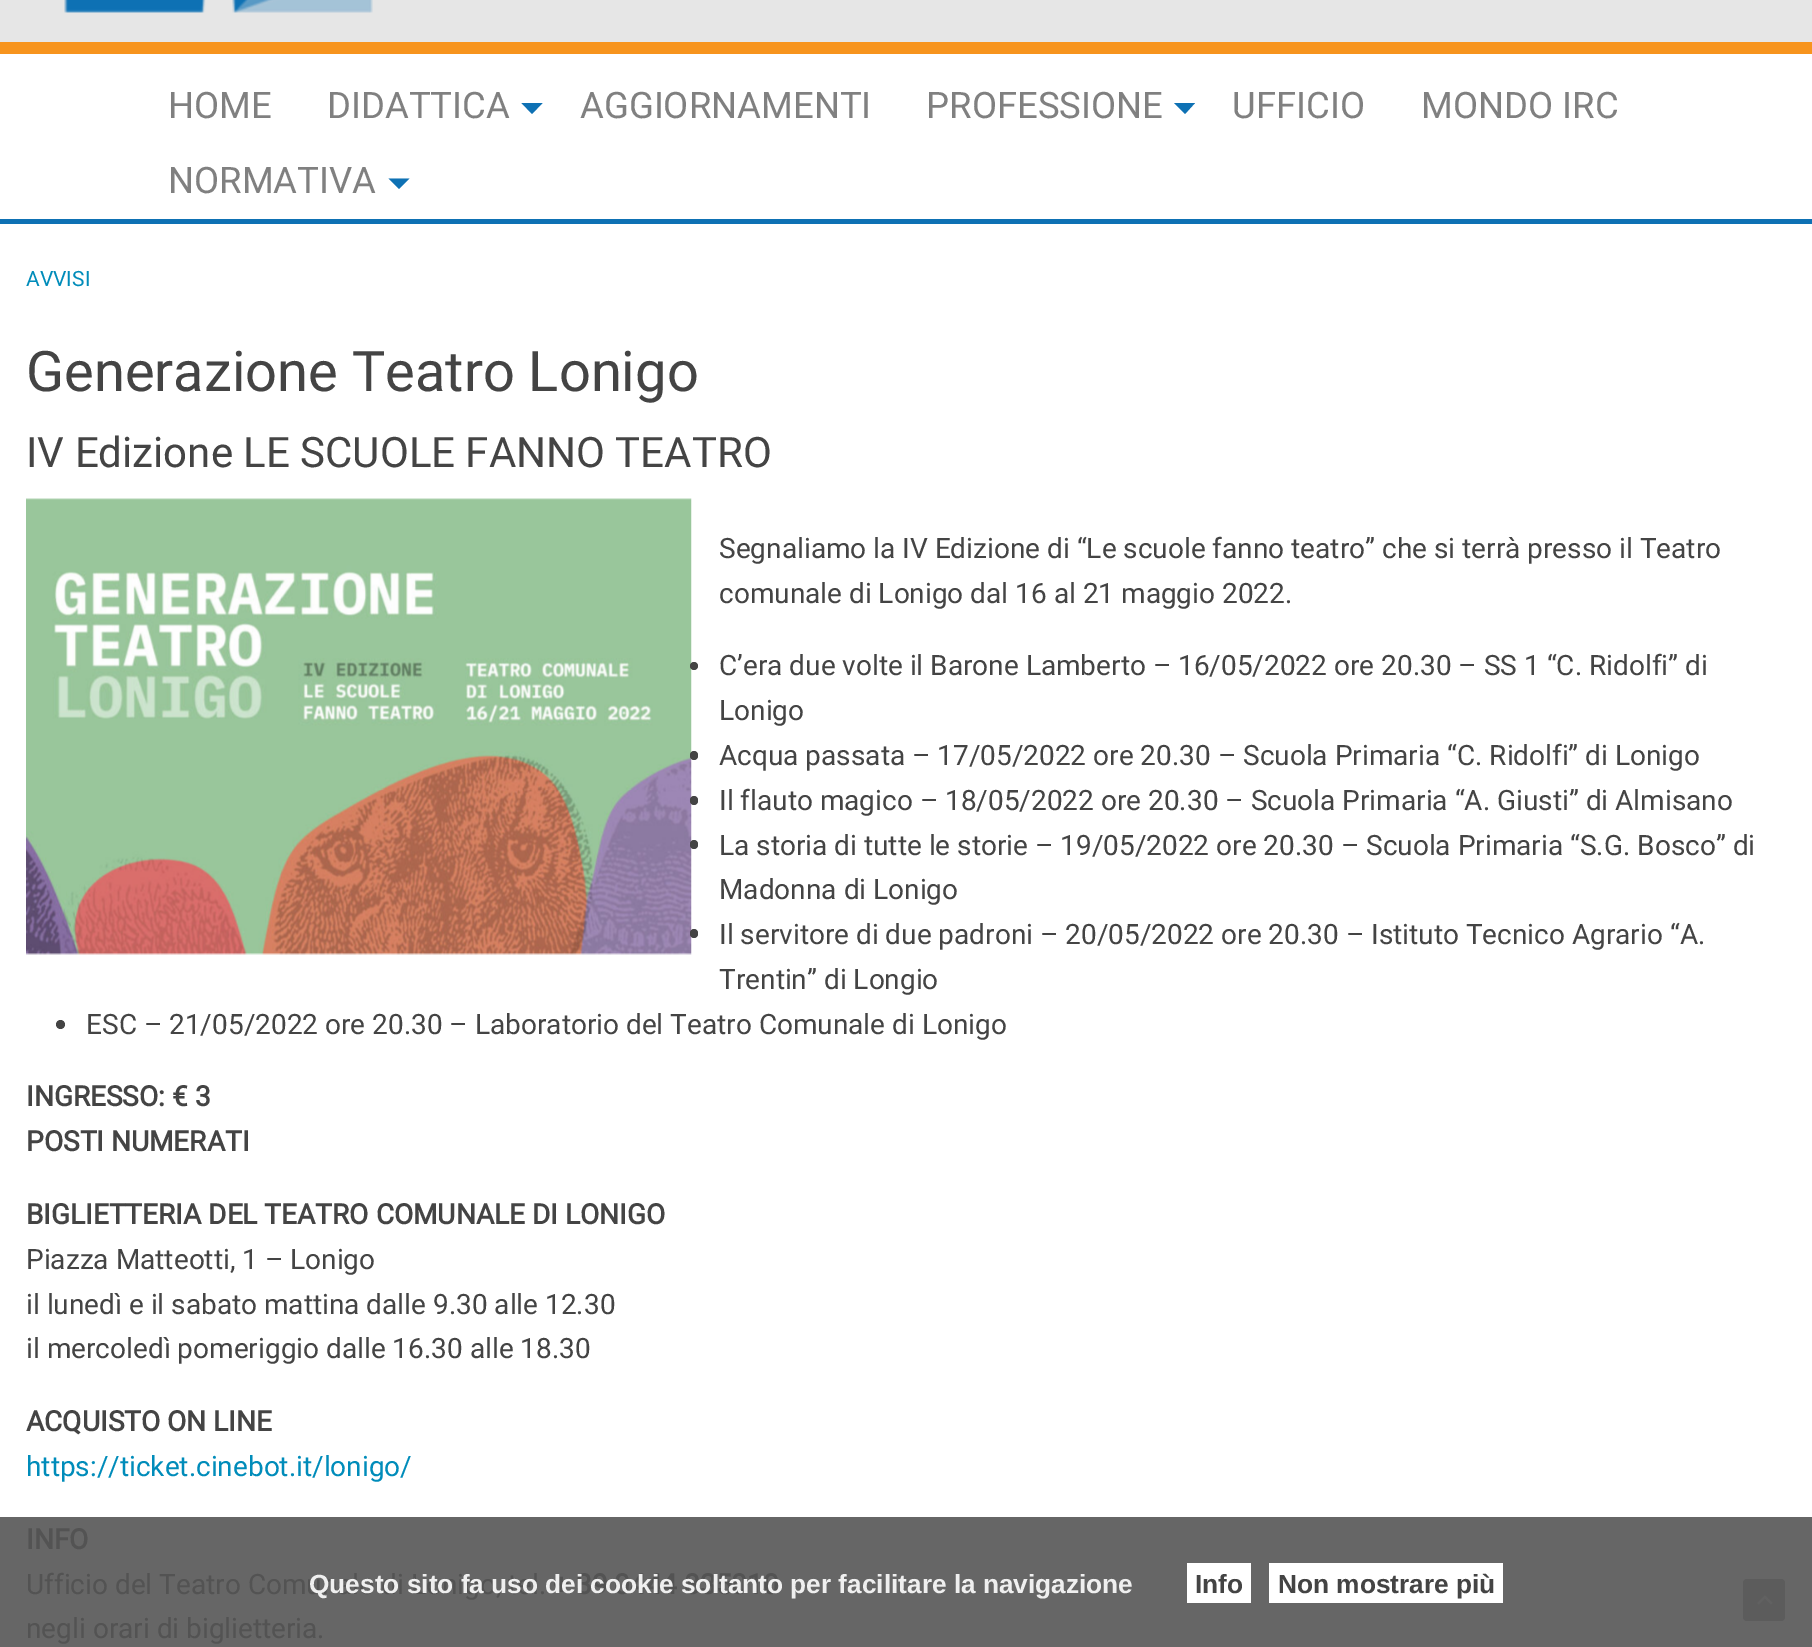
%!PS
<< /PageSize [1812 1647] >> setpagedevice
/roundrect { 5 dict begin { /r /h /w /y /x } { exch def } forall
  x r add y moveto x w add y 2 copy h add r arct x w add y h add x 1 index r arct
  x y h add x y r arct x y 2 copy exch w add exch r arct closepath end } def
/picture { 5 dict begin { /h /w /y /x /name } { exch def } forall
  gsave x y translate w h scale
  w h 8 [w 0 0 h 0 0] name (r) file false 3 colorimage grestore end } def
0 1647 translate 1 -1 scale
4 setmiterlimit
0.902 setgray
0 0 1812 1647 rectfill
0.969 0.58 0.114 setrgbcolor
0 42 1812 12 rectfill
(img1.rgb) 64 0 309 13 picture
1 setgray
0 54 1812 165 rectfill
0.055 0.443 0.706 setrgbcolor
0 219 1812 5 rectfill
/Roboto-Regular [36.5 0 0 -36.5 0 0] selectfont
0.502 setgray
168 118 moveto (HOME) show
327 118 moveto (DIDATTICA) show
0.055 0.443 0.706 setrgbcolor
newpath 521.5 103 moveto 542.5 103 lineto 532 114 lineto closepath fill
0.502 setgray
580 118 moveto (AGGIORNAMENTI) show
926 118 moveto (PROFESSIONE) show
0.055 0.443 0.706 setrgbcolor
newpath 1174 103 moveto 1195 103 lineto 1185 114 lineto closepath fill
0.502 setgray
1232 118 moveto (UFFICIO) show
1421 118 moveto (MONDO IRC) show
168 193 moveto (NORMATIVA) show
0.055 0.443 0.706 setrgbcolor
newpath 388.5 178.5 moveto 409.5 178.5 lineto 399 189 lineto closepath fill
1 setgray
0 224 1812 1293 rectfill
0.4 setgray
0 1517 1812 130 rectfill
/Roboto-Regular [21 0 0 -21 0 0] selectfont
0 0.549 0.729 setrgbcolor
26 286 moveto (AVVISI) show
/Roboto-Regular [56 0 0 -56 0 0] selectfont
0.267 setgray
26 391 moveto (Generazione Teatro Lonigo) show
/Roboto-Regular [42 0 0 -42 0 0] selectfont
26 467 moveto (IV Edizione LE SCUOLE FANNO TEATRO) show
(img2.rgb) 26 498 666 457 picture
/Roboto-Regular [28 0 0 -28 0 0] selectfont
719 558 moveto (Segnaliamo la IV Edizione di “Le scuole fanno teatro” che si terrà presso il Teatro) show
719 603 moveto (comunale di Lonigo dal 16 al 21 maggio 2022.) show
newpath 694 666 4 0 360 arc closepath fill
719 675 moveto (C’era due volte il Barone Lamberto – 16/05/2022 ore 20.30 – SS 1 “C. Ridolfi” di) show
719 720 moveto (Lonigo) show
690 751 8 9 4 roundrect fill
719 765 moveto (Acqua passata – 17/05/2022 ore 20.30 – Scuola Primaria “C. Ridolfi” di Lonigo) show
690 796 8 9 4 roundrect fill
719 810 moveto (Il flauto magico – 18/05/2022 ore 20.30 – Scuola Primaria “A. Giusti” di Almisano) show
690 840 8 9 4 roundrect fill
719 855 moveto (La storia di tutte le storie – 19/05/2022 ore 20.30 – Scuola Primaria “S.G. Bosco” di) show
719 899 moveto (Madonna di Lonigo) show
690 929 8 9 4 roundrect fill
719 944 moveto (Il servitore di due padroni – 20/05/2022 ore 20.30 – Istituto Tecnico Agrario “A.) show
719 989 moveto (Trentin” di Longio) show
newpath 60.5 1024.5 4.5 0 360 arc closepath fill
86 1034 moveto (ESC – 21/05/2022 ore 20.30 – Laboratorio del Teatro Comunale di Lonigo) show
/Roboto-Bold [28 0 0 -28 0 0] selectfont
26 1106 moveto (INGRESSO: € 3) show
26 1151 moveto (POSTI NUMERATI) show
26 1224 moveto (BIGLIETTERIA DEL TEATRO COMUNALE DI LONIGO) show
/Roboto-Regular [28 0 0 -28 0 0] selectfont
26 1269 moveto (Piazza Matteotti, 1 – Lonigo) show
26 1314 moveto (il lunedì e il sabato mattina dalle 9.30 alle 12.30) show
26 1358 moveto (il mercoledì pomeriggio dalle 16.30 alle 18.30) show
/Roboto-Bold [28 0 0 -28 0 0] selectfont
26 1431 moveto (ACQUISTO ON LINE) show
/Roboto-Regular [28 0 0 -28 0 0] selectfont
0 0.549 0.729 setrgbcolor
26 1476 moveto (https://ticket.cinebot.it/lonigo/) show
/Roboto-Bold [28 0 0 -28 0 0] selectfont
0.325 setgray
26 1549 moveto (INFO) show
/Roboto-Regular [28 0 0 -28 0 0] selectfont
26 1594 moveto (Ufficio del Teatro Comunale di Lonigo, tel.) show
/Roboto-Bold [28 0 0 -28 0 0] selectfont
553 1594 moveto (+ 39 0444 835010) show
/Roboto-Regular [28 0 0 -28 0 0] selectfont
26 1638 moveto (negli orari di biglietteria.) show
/LiberationSans-Bold [26.25 0 0 -26.25 0 0] selectfont
0.937 setgray
309 1593 moveto (Questo sito fa uso dei cookie soltanto per facilitare la navigazione) show
1 setgray
1187 1563 64 40 rectfill
0.267 setgray
1195 1593 moveto (Info) show
1 setgray
1269 1563 234 40 rectfill
0.267 setgray
1278 1593 moveto (Non mostrare più) show
0.361 setgray
1743 1579 42 42 4 roundrect fill
(img3.rgb) 1757 1595 16 10 picture
showpage
